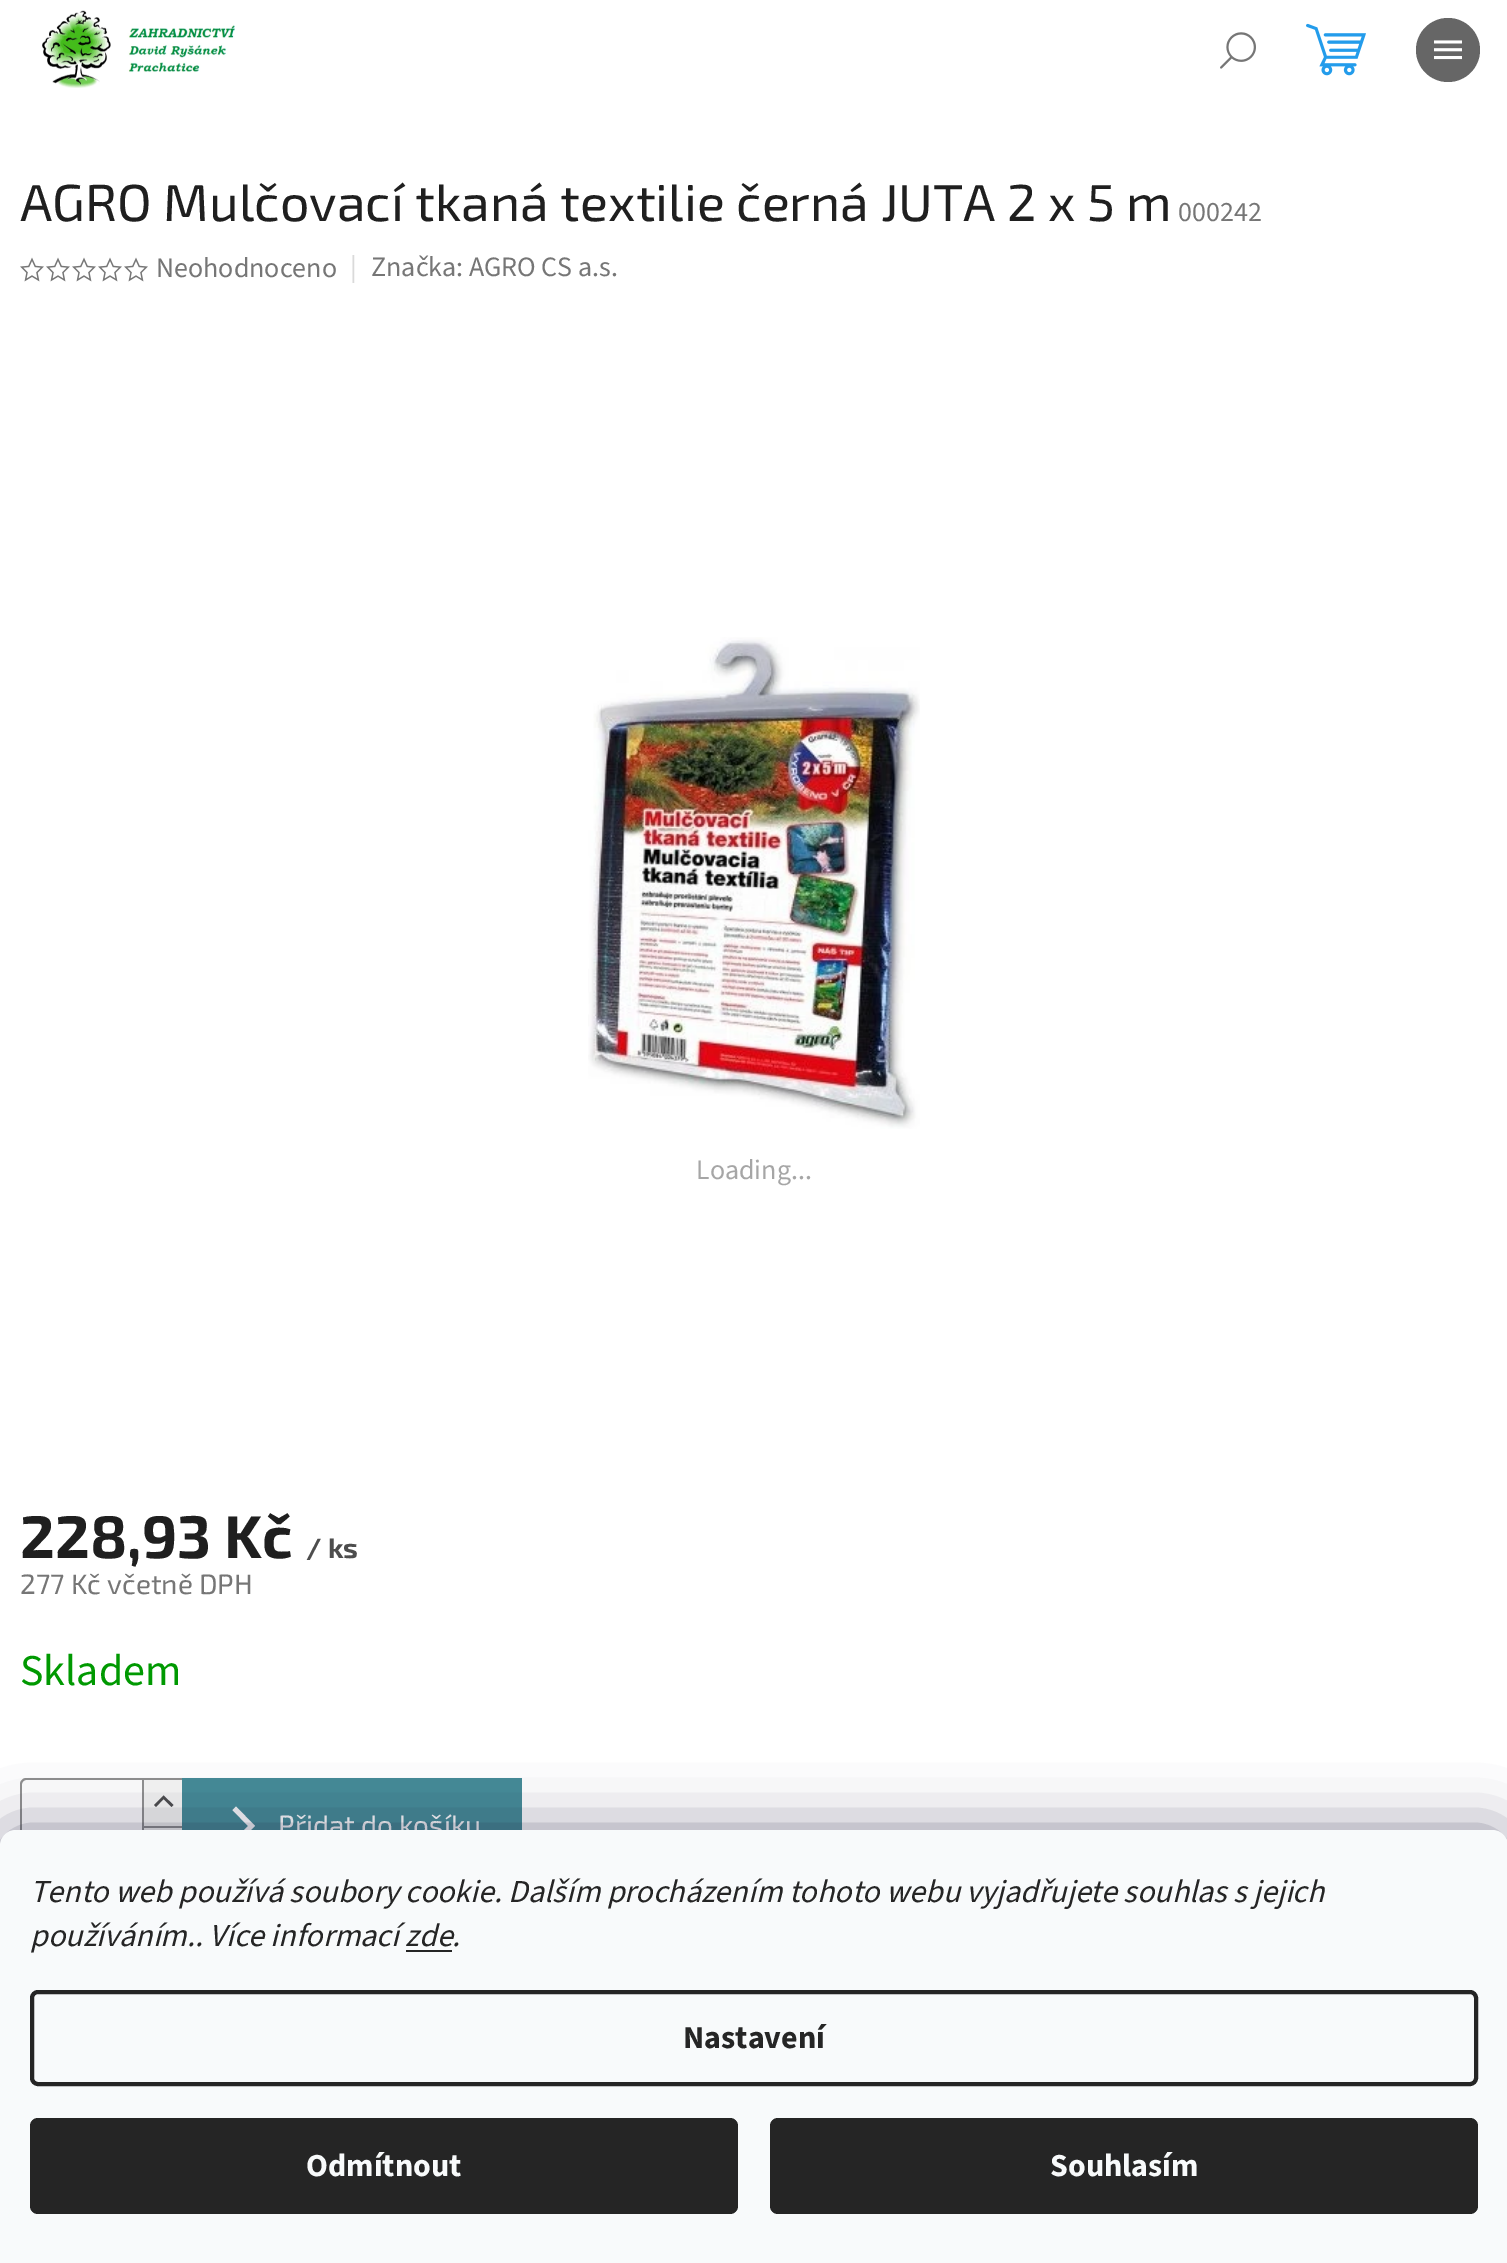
%!PS
<< /PageSize [1507 2263] /PageUsesTransparency true >> setpagedevice
/alpha { dup .setfillconstantalpha .setstrokeconstantalpha } def
/roundrect { 5 dict begin { /r /h /w /y /x } { exch def } forall
  x r add y moveto x w add y 2 copy h add r arct x w add y h add x 1 index r arct
  x y h add x y r arct x y 2 copy exch w add exch r arct closepath end } def
/shadow { 12 dict begin { /a /b /q /h /w /y /x } { exch def } forall gsave /was 0 def
  9 -2 -9 { dup b mul 4 div /e exch def 1 sub .425 mul 2.718 exch exp 1 add a .99 .min exch div /now exch def
    1 1 now sub 1 was sub div sub alpha /was now def
    w h .min e 2 mul add 0 gt { x e sub y e sub w e 2 mul add h e 2 mul add
      q e add b .6 mul add w h .min 2 div e add .min 0 .max roundrect fill } if } for grestore end } def
/picture { 5 dict begin { /h /w /y /x /name } { exch def } forall
  gsave x y translate w h scale
  w h 8 [w 0 0 h 0 0] name (r) file false 3 colorimage grestore end } def
0 .pushpdf14devicefilter
0 2263 translate 1 -1 scale
4 setmiterlimit
1 setgray
0 0 1507 2263 rectfill
(img1.rgb) 42 10 193 78 picture
(img2.rgb) 1306 23 60 53 picture
(img3.rgb) 1220 32 36 37 picture
0.4 setgray
newpath 1448 50 32 0 360 arc closepath fill
(img4.rgb) 1434 40 28 20 picture
/Exo2-Regular [52 0 0 -52 0 0] selectfont
0.122 setgray
20 221 moveto (AGRO Mulčovací tkaná textilie černá JUTA 2 x 5 m) show
/SourceSans3-Regular [28 0 0 -28 0 0] selectfont
0.463 setgray
1178 221 moveto (000242) show
(img5.rgb) 20 257 24 25 picture
(img5.rgb) 46 257 24 25 picture
(img5.rgb) 72 257 24 25 picture
(img5.rgb) 98 257 24 25 picture
(img5.rgb) 124 257 24 25 picture
156 277 moveto (Neohodnoceno) show
0.855 setgray
350 276 moveto (|) show
0.463 setgray
371 276 moveto (Značka: AGRO CS a.s.) show
(img6.rgb) 588 637 332 492 picture
0.651 setgray
696 1179 moveto (Loading...) show
/Exo2-Bold [60 0 0 -60 0 0] selectfont
0.122 setgray
20 1558 moveto (228,93 Kč) show
/Exo2-Bold [28 0 0 -28 0 0] selectfont
0.302 setgray
306 1558 moveto (/ ks) show
/Exo2-Regular [28 0 0 -28 0 0] selectfont
0.463 setgray
20 1594 moveto (277 Kč včetně DPH) show
/SourceSans3-Regular [44 0 0 -44 0 0] selectfont
0 0.6 0.004 setrgbcolor
20 1685 moveto (Skladem) show
0.569 setgray
newpath 26 1778 moveto 182 1778 lineto 182 1874 lineto 26 1874 lineto 23 1874 20 1871 20 1868 curveto 20 1784 lineto 20 1781 23 1778 26 1778 curveto closepath 26 1780 moveto 182 1780 lineto 182 1872 lineto 26 1872 lineto 24 1872 22 1870 22 1868 curveto 22 1784 lineto 22 1782 24 1780 26 1780 curveto closepath eofill
0.965 setgray
144 1780 38 46 rectfill
0.569 setgray
142 1780 2 46 rectfill
0.302 setgray
newpath 154 1805 moveto 156 1807 lineto 163.5 1799 lineto 171.5 1807 lineto 173.5 1805 lineto 163.5 1795.5 lineto closepath fill
0.965 setgray
144 1828 38 2 rectfill
0.569 setgray
142 1826 40 2 rectfill
142 1826 2 4 rectfill
0.275 0.549 0.596 setrgbcolor
182 1778 340 52 rectfill
1 setgray
newpath 236 1845 moveto 232.5 1841.5 lineto 248 1826 lineto 232.5 1810 lineto 236 1806.5 lineto 255 1826 lineto closepath fill
/Exo2-Regular [28 0 0 -28 0 0] selectfont
278 1835 moveto (Přidat do košíku) show
0.106 0.098 0.224 setrgbcolor
0 1830 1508 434 16 30 0.5 shadow
0.973 0.98 0.984 setrgbcolor
newpath 16 1830 moveto 1492 1830 lineto 1501 1830 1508 1837 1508 1846 curveto 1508 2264 lineto 0 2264 lineto 0 1846 lineto 0 1837 7 1830 16 1830 curveto closepath fill
/SourceSans3-Italic [32 0 0 -32 0 0] selectfont
0.145 setgray
30 1902 moveto (Tento web používá soubory cookie. Dalším procházením tohoto webu vyjadřujete souhlas s jejich) show
30 1946 moveto (používáním.. Více informací zde.) show
406 1950 46 2 rectfill
4 setlinewidth
32 1992 1444 92 6 roundrect stroke
/SourceSans3-Bold [32 0 0 -32 0 0] selectfont
683 2048 moveto (Nastavení) show
30 2118 708 96 8 roundrect fill
0.973 0.98 0.984 setrgbcolor
306 2176 moveto (Odmítnout) show
0.145 setgray
770 2118 708 96 8 roundrect fill
0.973 0.98 0.984 setrgbcolor
1050 2176 moveto (Souhlasím) show
.poppdf14devicefilter showpage
